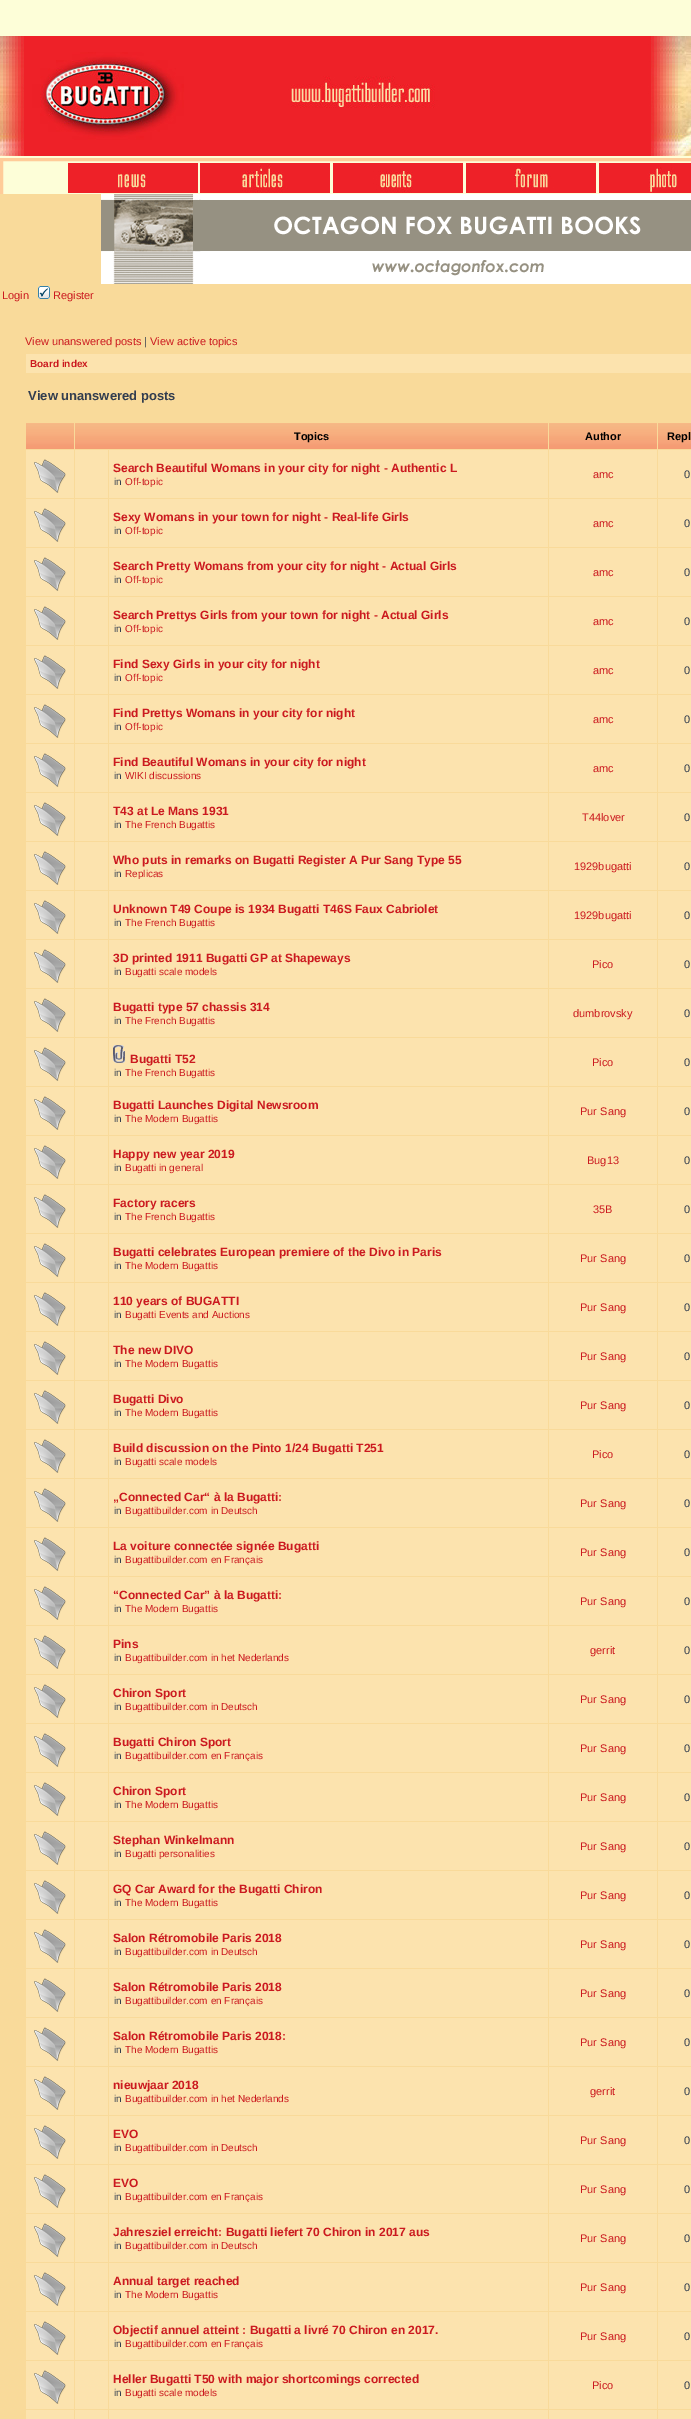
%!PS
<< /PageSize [691 2419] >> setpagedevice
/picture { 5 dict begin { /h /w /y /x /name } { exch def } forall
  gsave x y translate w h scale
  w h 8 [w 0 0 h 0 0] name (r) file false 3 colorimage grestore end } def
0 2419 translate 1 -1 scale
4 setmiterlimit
0.992 0.996 0.847 setrgbcolor
0 0 691 2419 rectfill
(img1.rgb) 0 36 691 120 picture
1 0.8 0.6 setrgbcolor
3 setlinewidth
1.5 159.5 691 69 rectstroke
(img2.rgb) 68 163 130 30 picture
(img3.rgb) 200 163 130 30 picture
(img4.rgb) 333 163 130 30 picture
(img5.rgb) 466 163 130 30 picture
(img6.rgb) 599 163 92 30 picture
0.976 0.855 0.604 setrgbcolor
0 194 691 2225 rectfill
(img7.rgb) 101 194 590 90 picture
/LiberationSans-Regular [11 0 0 -11 0 0] selectfont
0.796 0.098 0.122 setrgbcolor
2 299 moveto (Login) show
(img8.rgb) 38 286 12 13 picture
53 299 moveto (Register) show
25 345 moveto (View unanswered posts) show
0.196 0.239 0.31 setrgbcolor
144 345 moveto (|) show
0.796 0.098 0.122 setrgbcolor
150 345 moveto (View active topics) show
0.988 0.89 0.682 setrgbcolor
26 354 665 19 rectfill
/LiberationSans-Bold [10 0 0 -10 0 0] selectfont
0.796 0.098 0.122 setrgbcolor
30 367 moveto (Board index) show
/LiberationSans-Bold [13 0 0 -13 0 0] selectfont
0.196 0.239 0.31 setrgbcolor
28 400 moveto (View unanswered posts) show
(img9.rgb) 26 423 48 26 picture
(img10.rgb) 75 423 473 26 picture
/LiberationSans-Bold [11 0 0 -11 0 0] selectfont
0 setgray
294 440 moveto (Topics) show
(img11.rgb) 549 423 108 26 picture
585 440 moveto (Author) show
(img12.rgb) 658 423 33 26 picture
667 440 moveto (Repl) show
0.988 0.89 0.682 setrgbcolor
26 450 48 48 rectfill
(img13.rgb) 34 459 32 34 picture
75 450 33 48 rectfill
109 450 439 48 rectfill
/LiberationSans-Bold [12 0 0 -12 0 0] selectfont
0.796 0.098 0.122 setrgbcolor
113 472 moveto (Search Beautiful Womans in your city for night - Authentic L) show
/LiberationSans-Regular [10 0 0 -10 0 0] selectfont
0.196 0.239 0.31 setrgbcolor
114 485 moveto (in) show
0.796 0.098 0.122 setrgbcolor
125 485 moveto (Off-topic) show
0.988 0.89 0.682 setrgbcolor
549 450 108 48 rectfill
/LiberationSans-Regular [11 0 0 -11 0 0] selectfont
0.796 0.098 0.122 setrgbcolor
593 478 moveto (amc) show
0.988 0.89 0.682 setrgbcolor
658 450 33 48 rectfill
0.196 0.239 0.31 setrgbcolor
684 478 moveto (0) show
0.988 0.89 0.682 setrgbcolor
26 499 48 48 rectfill
(img13.rgb) 34 508 32 34 picture
75 499 33 48 rectfill
109 499 439 48 rectfill
/LiberationSans-Bold [12 0 0 -12 0 0] selectfont
0.796 0.098 0.122 setrgbcolor
113 521 moveto (Sexy Womans in your town for night - Real-life Girls) show
/LiberationSans-Regular [10 0 0 -10 0 0] selectfont
0.196 0.239 0.31 setrgbcolor
114 534 moveto (in) show
0.796 0.098 0.122 setrgbcolor
125 534 moveto (Off-topic) show
0.988 0.89 0.682 setrgbcolor
549 499 108 48 rectfill
/LiberationSans-Regular [11 0 0 -11 0 0] selectfont
0.796 0.098 0.122 setrgbcolor
593 527 moveto (amc) show
0.988 0.89 0.682 setrgbcolor
658 499 33 48 rectfill
0.196 0.239 0.31 setrgbcolor
684 527 moveto (0) show
0.988 0.89 0.682 setrgbcolor
26 548 48 48 rectfill
(img13.rgb) 34 557 32 34 picture
75 548 33 48 rectfill
109 548 439 48 rectfill
/LiberationSans-Bold [12 0 0 -12 0 0] selectfont
0.796 0.098 0.122 setrgbcolor
113 570 moveto (Search Pretty Womans from your city for night - Actual Girls) show
/LiberationSans-Regular [10 0 0 -10 0 0] selectfont
0.196 0.239 0.31 setrgbcolor
114 583 moveto (in) show
0.796 0.098 0.122 setrgbcolor
125 583 moveto (Off-topic) show
0.988 0.89 0.682 setrgbcolor
549 548 108 48 rectfill
/LiberationSans-Regular [11 0 0 -11 0 0] selectfont
0.796 0.098 0.122 setrgbcolor
593 576 moveto (amc) show
0.988 0.89 0.682 setrgbcolor
658 548 33 48 rectfill
0.196 0.239 0.31 setrgbcolor
684 576 moveto (0) show
0.988 0.89 0.682 setrgbcolor
26 597 48 48 rectfill
(img13.rgb) 34 606 32 34 picture
75 597 33 48 rectfill
109 597 439 48 rectfill
/LiberationSans-Bold [12 0 0 -12 0 0] selectfont
0.796 0.098 0.122 setrgbcolor
113 619 moveto (Search Prettys Girls from your town for night - Actual Girls) show
/LiberationSans-Regular [10 0 0 -10 0 0] selectfont
0.196 0.239 0.31 setrgbcolor
114 632 moveto (in) show
0.796 0.098 0.122 setrgbcolor
125 632 moveto (Off-topic) show
0.988 0.89 0.682 setrgbcolor
549 597 108 48 rectfill
/LiberationSans-Regular [11 0 0 -11 0 0] selectfont
0.796 0.098 0.122 setrgbcolor
593 625 moveto (amc) show
0.988 0.89 0.682 setrgbcolor
658 597 33 48 rectfill
0.196 0.239 0.31 setrgbcolor
684 625 moveto (0) show
0.988 0.89 0.682 setrgbcolor
26 646 48 48 rectfill
(img13.rgb) 34 655 32 34 picture
75 646 33 48 rectfill
109 646 439 48 rectfill
/LiberationSans-Bold [12 0 0 -12 0 0] selectfont
0.796 0.098 0.122 setrgbcolor
113 668 moveto (Find Sexy Girls in your city for night) show
/LiberationSans-Regular [10 0 0 -10 0 0] selectfont
0.196 0.239 0.31 setrgbcolor
114 681 moveto (in) show
0.796 0.098 0.122 setrgbcolor
125 681 moveto (Off-topic) show
0.988 0.89 0.682 setrgbcolor
549 646 108 48 rectfill
/LiberationSans-Regular [11 0 0 -11 0 0] selectfont
0.796 0.098 0.122 setrgbcolor
593 674 moveto (amc) show
0.988 0.89 0.682 setrgbcolor
658 646 33 48 rectfill
0.196 0.239 0.31 setrgbcolor
684 674 moveto (0) show
0.988 0.89 0.682 setrgbcolor
26 695 48 48 rectfill
(img13.rgb) 34 704 32 34 picture
75 695 33 48 rectfill
109 695 439 48 rectfill
/LiberationSans-Bold [12 0 0 -12 0 0] selectfont
0.796 0.098 0.122 setrgbcolor
113 717 moveto (Find Prettys Womans in your city for night) show
/LiberationSans-Regular [10 0 0 -10 0 0] selectfont
0.196 0.239 0.31 setrgbcolor
114 730 moveto (in) show
0.796 0.098 0.122 setrgbcolor
125 730 moveto (Off-topic) show
0.988 0.89 0.682 setrgbcolor
549 695 108 48 rectfill
/LiberationSans-Regular [11 0 0 -11 0 0] selectfont
0.796 0.098 0.122 setrgbcolor
593 723 moveto (amc) show
0.988 0.89 0.682 setrgbcolor
658 695 33 48 rectfill
0.196 0.239 0.31 setrgbcolor
684 723 moveto (0) show
0.988 0.89 0.682 setrgbcolor
26 744 48 48 rectfill
(img13.rgb) 34 753 32 34 picture
75 744 33 48 rectfill
109 744 439 48 rectfill
/LiberationSans-Bold [12 0 0 -12 0 0] selectfont
0.796 0.098 0.122 setrgbcolor
113 766 moveto (Find Beautiful Womans in your city for night) show
/LiberationSans-Regular [10 0 0 -10 0 0] selectfont
0.196 0.239 0.31 setrgbcolor
114 779 moveto (in) show
0.796 0.098 0.122 setrgbcolor
125 779 moveto (WIKI discussions) show
0.988 0.89 0.682 setrgbcolor
549 744 108 48 rectfill
/LiberationSans-Regular [11 0 0 -11 0 0] selectfont
0.796 0.098 0.122 setrgbcolor
593 772 moveto (amc) show
0.988 0.89 0.682 setrgbcolor
658 744 33 48 rectfill
0.196 0.239 0.31 setrgbcolor
684 772 moveto (0) show
0.988 0.89 0.682 setrgbcolor
26 793 48 48 rectfill
(img13.rgb) 34 802 32 34 picture
75 793 33 48 rectfill
109 793 439 48 rectfill
/LiberationSans-Bold [12 0 0 -12 0 0] selectfont
0.796 0.098 0.122 setrgbcolor
113 815 moveto (T43 at Le Mans 1931) show
/LiberationSans-Regular [10 0 0 -10 0 0] selectfont
0.196 0.239 0.31 setrgbcolor
114 828 moveto (in) show
0.796 0.098 0.122 setrgbcolor
125 828 moveto (The French Bugattis) show
0.988 0.89 0.682 setrgbcolor
549 793 108 48 rectfill
/LiberationSans-Regular [11 0 0 -11 0 0] selectfont
0.796 0.098 0.122 setrgbcolor
582 821 moveto (T44lover) show
0.988 0.89 0.682 setrgbcolor
658 793 33 48 rectfill
0.196 0.239 0.31 setrgbcolor
684 821 moveto (0) show
0.988 0.89 0.682 setrgbcolor
26 842 48 48 rectfill
(img13.rgb) 34 851 32 34 picture
75 842 33 48 rectfill
109 842 439 48 rectfill
/LiberationSans-Bold [12 0 0 -12 0 0] selectfont
0.796 0.098 0.122 setrgbcolor
113 864 moveto (Who puts in remarks on Bugatti Register A Pur Sang Type 55) show
/LiberationSans-Regular [10 0 0 -10 0 0] selectfont
0.196 0.239 0.31 setrgbcolor
114 877 moveto (in) show
0.796 0.098 0.122 setrgbcolor
125 877 moveto (Replicas) show
0.988 0.89 0.682 setrgbcolor
549 842 108 48 rectfill
/LiberationSans-Regular [11 0 0 -11 0 0] selectfont
0.796 0.098 0.122 setrgbcolor
574 870 moveto (1929bugatti) show
0.988 0.89 0.682 setrgbcolor
658 842 33 48 rectfill
0.196 0.239 0.31 setrgbcolor
684 870 moveto (0) show
0.988 0.89 0.682 setrgbcolor
26 891 48 48 rectfill
(img13.rgb) 34 900 32 34 picture
75 891 33 48 rectfill
109 891 439 48 rectfill
/LiberationSans-Bold [12 0 0 -12 0 0] selectfont
0.796 0.098 0.122 setrgbcolor
113 913 moveto (Unknown T49 Coupe is 1934 Bugatti T46S Faux Cabriolet) show
/LiberationSans-Regular [10 0 0 -10 0 0] selectfont
0.196 0.239 0.31 setrgbcolor
114 926 moveto (in) show
0.796 0.098 0.122 setrgbcolor
125 926 moveto (The French Bugattis) show
0.988 0.89 0.682 setrgbcolor
549 891 108 48 rectfill
/LiberationSans-Regular [11 0 0 -11 0 0] selectfont
0.796 0.098 0.122 setrgbcolor
574 919 moveto (1929bugatti) show
0.988 0.89 0.682 setrgbcolor
658 891 33 48 rectfill
0.196 0.239 0.31 setrgbcolor
684 919 moveto (0) show
0.988 0.89 0.682 setrgbcolor
26 940 48 48 rectfill
(img13.rgb) 34 949 32 34 picture
75 940 33 48 rectfill
109 940 439 48 rectfill
/LiberationSans-Bold [12 0 0 -12 0 0] selectfont
0.796 0.098 0.122 setrgbcolor
113 962 moveto (3D printed 1911 Bugatti GP at Shapeways) show
/LiberationSans-Regular [10 0 0 -10 0 0] selectfont
0.196 0.239 0.31 setrgbcolor
114 975 moveto (in) show
0.796 0.098 0.122 setrgbcolor
125 975 moveto (Bugatti scale models) show
0.988 0.89 0.682 setrgbcolor
549 940 108 48 rectfill
/LiberationSans-Regular [11 0 0 -11 0 0] selectfont
0.796 0.098 0.122 setrgbcolor
592 968 moveto (Pico) show
0.988 0.89 0.682 setrgbcolor
658 940 33 48 rectfill
0.196 0.239 0.31 setrgbcolor
684 968 moveto (0) show
0.988 0.89 0.682 setrgbcolor
26 989 48 48 rectfill
(img13.rgb) 34 998 32 34 picture
75 989 33 48 rectfill
109 989 439 48 rectfill
/LiberationSans-Bold [12 0 0 -12 0 0] selectfont
0.796 0.098 0.122 setrgbcolor
113 1011 moveto (Bugatti type 57 chassis 314) show
/LiberationSans-Regular [10 0 0 -10 0 0] selectfont
0.196 0.239 0.31 setrgbcolor
114 1024 moveto (in) show
0.796 0.098 0.122 setrgbcolor
125 1024 moveto (The French Bugattis) show
0.988 0.89 0.682 setrgbcolor
549 989 108 48 rectfill
/LiberationSans-Regular [11 0 0 -11 0 0] selectfont
0.796 0.098 0.122 setrgbcolor
573 1017 moveto (dumbrovsky) show
0.988 0.89 0.682 setrgbcolor
658 989 33 48 rectfill
0.196 0.239 0.31 setrgbcolor
684 1017 moveto (0) show
0.988 0.89 0.682 setrgbcolor
26 1038 48 48 rectfill
(img13.rgb) 34 1047 32 34 picture
75 1038 33 48 rectfill
109 1038 439 48 rectfill
(img14.rgb) 113 1045 12 18 picture
/LiberationSans-Bold [12 0 0 -12 0 0] selectfont
0.796 0.098 0.122 setrgbcolor
130 1063 moveto (Bugatti T52) show
/LiberationSans-Regular [10 0 0 -10 0 0] selectfont
0.196 0.239 0.31 setrgbcolor
114 1076 moveto (in) show
0.796 0.098 0.122 setrgbcolor
125 1076 moveto (The French Bugattis) show
0.988 0.89 0.682 setrgbcolor
549 1038 108 48 rectfill
/LiberationSans-Regular [11 0 0 -11 0 0] selectfont
0.796 0.098 0.122 setrgbcolor
592 1066 moveto (Pico) show
0.988 0.89 0.682 setrgbcolor
658 1038 33 48 rectfill
0.196 0.239 0.31 setrgbcolor
684 1066 moveto (0) show
0.988 0.89 0.682 setrgbcolor
26 1087 48 48 rectfill
(img13.rgb) 34 1096 32 34 picture
75 1087 33 48 rectfill
109 1087 439 48 rectfill
/LiberationSans-Bold [12 0 0 -12 0 0] selectfont
0.796 0.098 0.122 setrgbcolor
113 1109 moveto (Bugatti Launches Digital Newsroom) show
/LiberationSans-Regular [10 0 0 -10 0 0] selectfont
0.196 0.239 0.31 setrgbcolor
114 1122 moveto (in) show
0.796 0.098 0.122 setrgbcolor
125 1122 moveto (The Modern Bugattis) show
0.988 0.89 0.682 setrgbcolor
549 1087 108 48 rectfill
/LiberationSans-Regular [11 0 0 -11 0 0] selectfont
0.796 0.098 0.122 setrgbcolor
580 1115 moveto (Pur Sang) show
0.988 0.89 0.682 setrgbcolor
658 1087 33 48 rectfill
0.196 0.239 0.31 setrgbcolor
684 1115 moveto (0) show
0.988 0.89 0.682 setrgbcolor
26 1136 48 48 rectfill
(img13.rgb) 34 1145 32 34 picture
75 1136 33 48 rectfill
109 1136 439 48 rectfill
/LiberationSans-Bold [12 0 0 -12 0 0] selectfont
0.796 0.098 0.122 setrgbcolor
113 1158 moveto (Happy new year 2019) show
/LiberationSans-Regular [10 0 0 -10 0 0] selectfont
0.196 0.239 0.31 setrgbcolor
114 1171 moveto (in) show
0.796 0.098 0.122 setrgbcolor
125 1171 moveto (Bugatti in general) show
0.988 0.89 0.682 setrgbcolor
549 1136 108 48 rectfill
/LiberationSans-Regular [11 0 0 -11 0 0] selectfont
0.796 0.098 0.122 setrgbcolor
587 1164 moveto (Bug13) show
0.988 0.89 0.682 setrgbcolor
658 1136 33 48 rectfill
0.196 0.239 0.31 setrgbcolor
684 1164 moveto (0) show
0.988 0.89 0.682 setrgbcolor
26 1185 48 48 rectfill
(img13.rgb) 34 1194 32 34 picture
75 1185 33 48 rectfill
109 1185 439 48 rectfill
/LiberationSans-Bold [12 0 0 -12 0 0] selectfont
0.796 0.098 0.122 setrgbcolor
113 1207 moveto (Factory racers) show
/LiberationSans-Regular [10 0 0 -10 0 0] selectfont
0.196 0.239 0.31 setrgbcolor
114 1220 moveto (in) show
0.796 0.098 0.122 setrgbcolor
125 1220 moveto (The French Bugattis) show
0.988 0.89 0.682 setrgbcolor
549 1185 108 48 rectfill
/LiberationSans-Regular [11 0 0 -11 0 0] selectfont
0.796 0.098 0.122 setrgbcolor
593 1213 moveto (35B) show
0.988 0.89 0.682 setrgbcolor
658 1185 33 48 rectfill
0.196 0.239 0.31 setrgbcolor
684 1213 moveto (0) show
0.988 0.89 0.682 setrgbcolor
26 1234 48 48 rectfill
(img13.rgb) 34 1243 32 34 picture
75 1234 33 48 rectfill
109 1234 439 48 rectfill
/LiberationSans-Bold [12 0 0 -12 0 0] selectfont
0.796 0.098 0.122 setrgbcolor
113 1256 moveto (Bugatti celebrates European premiere of the Divo in Paris) show
/LiberationSans-Regular [10 0 0 -10 0 0] selectfont
0.196 0.239 0.31 setrgbcolor
114 1269 moveto (in) show
0.796 0.098 0.122 setrgbcolor
125 1269 moveto (The Modern Bugattis) show
0.988 0.89 0.682 setrgbcolor
549 1234 108 48 rectfill
/LiberationSans-Regular [11 0 0 -11 0 0] selectfont
0.796 0.098 0.122 setrgbcolor
580 1262 moveto (Pur Sang) show
0.988 0.89 0.682 setrgbcolor
658 1234 33 48 rectfill
0.196 0.239 0.31 setrgbcolor
684 1262 moveto (0) show
0.988 0.89 0.682 setrgbcolor
26 1283 48 48 rectfill
(img13.rgb) 34 1292 32 34 picture
75 1283 33 48 rectfill
109 1283 439 48 rectfill
/LiberationSans-Bold [12 0 0 -12 0 0] selectfont
0.796 0.098 0.122 setrgbcolor
113 1305 moveto (110 years of BUGATTI) show
/LiberationSans-Regular [10 0 0 -10 0 0] selectfont
0.196 0.239 0.31 setrgbcolor
114 1318 moveto (in) show
0.796 0.098 0.122 setrgbcolor
125 1318 moveto (Bugatti Events and Auctions) show
0.988 0.89 0.682 setrgbcolor
549 1283 108 48 rectfill
/LiberationSans-Regular [11 0 0 -11 0 0] selectfont
0.796 0.098 0.122 setrgbcolor
580 1311 moveto (Pur Sang) show
0.988 0.89 0.682 setrgbcolor
658 1283 33 48 rectfill
0.196 0.239 0.31 setrgbcolor
684 1311 moveto (0) show
0.988 0.89 0.682 setrgbcolor
26 1332 48 48 rectfill
(img13.rgb) 34 1341 32 34 picture
75 1332 33 48 rectfill
109 1332 439 48 rectfill
/LiberationSans-Bold [12 0 0 -12 0 0] selectfont
0.796 0.098 0.122 setrgbcolor
113 1354 moveto (The new DIVO) show
/LiberationSans-Regular [10 0 0 -10 0 0] selectfont
0.196 0.239 0.31 setrgbcolor
114 1367 moveto (in) show
0.796 0.098 0.122 setrgbcolor
125 1367 moveto (The Modern Bugattis) show
0.988 0.89 0.682 setrgbcolor
549 1332 108 48 rectfill
/LiberationSans-Regular [11 0 0 -11 0 0] selectfont
0.796 0.098 0.122 setrgbcolor
580 1360 moveto (Pur Sang) show
0.988 0.89 0.682 setrgbcolor
658 1332 33 48 rectfill
0.196 0.239 0.31 setrgbcolor
684 1360 moveto (0) show
0.988 0.89 0.682 setrgbcolor
26 1381 48 48 rectfill
(img13.rgb) 34 1390 32 34 picture
75 1381 33 48 rectfill
109 1381 439 48 rectfill
/LiberationSans-Bold [12 0 0 -12 0 0] selectfont
0.796 0.098 0.122 setrgbcolor
113 1403 moveto (Bugatti Divo) show
/LiberationSans-Regular [10 0 0 -10 0 0] selectfont
0.196 0.239 0.31 setrgbcolor
114 1416 moveto (in) show
0.796 0.098 0.122 setrgbcolor
125 1416 moveto (The Modern Bugattis) show
0.988 0.89 0.682 setrgbcolor
549 1381 108 48 rectfill
/LiberationSans-Regular [11 0 0 -11 0 0] selectfont
0.796 0.098 0.122 setrgbcolor
580 1409 moveto (Pur Sang) show
0.988 0.89 0.682 setrgbcolor
658 1381 33 48 rectfill
0.196 0.239 0.31 setrgbcolor
684 1409 moveto (0) show
0.988 0.89 0.682 setrgbcolor
26 1430 48 48 rectfill
(img13.rgb) 34 1439 32 34 picture
75 1430 33 48 rectfill
109 1430 439 48 rectfill
/LiberationSans-Bold [12 0 0 -12 0 0] selectfont
0.796 0.098 0.122 setrgbcolor
113 1452 moveto (Build discussion on the Pinto 1/24 Bugatti T251) show
/LiberationSans-Regular [10 0 0 -10 0 0] selectfont
0.196 0.239 0.31 setrgbcolor
114 1465 moveto (in) show
0.796 0.098 0.122 setrgbcolor
125 1465 moveto (Bugatti scale models) show
0.988 0.89 0.682 setrgbcolor
549 1430 108 48 rectfill
/LiberationSans-Regular [11 0 0 -11 0 0] selectfont
0.796 0.098 0.122 setrgbcolor
592 1458 moveto (Pico) show
0.988 0.89 0.682 setrgbcolor
658 1430 33 48 rectfill
0.196 0.239 0.31 setrgbcolor
684 1458 moveto (0) show
0.988 0.89 0.682 setrgbcolor
26 1479 48 48 rectfill
(img13.rgb) 34 1488 32 34 picture
75 1479 33 48 rectfill
109 1479 439 48 rectfill
/LiberationSans-Bold [12 0 0 -12 0 0] selectfont
0.796 0.098 0.122 setrgbcolor
113 1501 moveto („Connected Car“ à la Bugatti:) show
/LiberationSans-Regular [10 0 0 -10 0 0] selectfont
0.196 0.239 0.31 setrgbcolor
114 1514 moveto (in) show
0.796 0.098 0.122 setrgbcolor
125 1514 moveto (Bugattibuilder.com in Deutsch) show
0.988 0.89 0.682 setrgbcolor
549 1479 108 48 rectfill
/LiberationSans-Regular [11 0 0 -11 0 0] selectfont
0.796 0.098 0.122 setrgbcolor
580 1507 moveto (Pur Sang) show
0.988 0.89 0.682 setrgbcolor
658 1479 33 48 rectfill
0.196 0.239 0.31 setrgbcolor
684 1507 moveto (0) show
0.988 0.89 0.682 setrgbcolor
26 1528 48 48 rectfill
(img13.rgb) 34 1537 32 34 picture
75 1528 33 48 rectfill
109 1528 439 48 rectfill
/LiberationSans-Bold [12 0 0 -12 0 0] selectfont
0.796 0.098 0.122 setrgbcolor
113 1550 moveto (La voiture connectée signée Bugatti) show
/LiberationSans-Regular [10 0 0 -10 0 0] selectfont
0.196 0.239 0.31 setrgbcolor
114 1563 moveto (in) show
0.796 0.098 0.122 setrgbcolor
125 1563 moveto (Bugattibuilder.com en Français) show
0.988 0.89 0.682 setrgbcolor
549 1528 108 48 rectfill
/LiberationSans-Regular [11 0 0 -11 0 0] selectfont
0.796 0.098 0.122 setrgbcolor
580 1556 moveto (Pur Sang) show
0.988 0.89 0.682 setrgbcolor
658 1528 33 48 rectfill
0.196 0.239 0.31 setrgbcolor
684 1556 moveto (0) show
0.988 0.89 0.682 setrgbcolor
26 1577 48 48 rectfill
(img13.rgb) 34 1586 32 34 picture
75 1577 33 48 rectfill
109 1577 439 48 rectfill
/LiberationSans-Bold [12 0 0 -12 0 0] selectfont
0.796 0.098 0.122 setrgbcolor
113 1599 moveto (“Connected Car” à la Bugatti:) show
/LiberationSans-Regular [10 0 0 -10 0 0] selectfont
0.196 0.239 0.31 setrgbcolor
114 1612 moveto (in) show
0.796 0.098 0.122 setrgbcolor
125 1612 moveto (The Modern Bugattis) show
0.988 0.89 0.682 setrgbcolor
549 1577 108 48 rectfill
/LiberationSans-Regular [11 0 0 -11 0 0] selectfont
0.796 0.098 0.122 setrgbcolor
580 1605 moveto (Pur Sang) show
0.988 0.89 0.682 setrgbcolor
658 1577 33 48 rectfill
0.196 0.239 0.31 setrgbcolor
684 1605 moveto (0) show
0.988 0.89 0.682 setrgbcolor
26 1626 48 48 rectfill
(img13.rgb) 34 1635 32 34 picture
75 1626 33 48 rectfill
109 1626 439 48 rectfill
/LiberationSans-Bold [12 0 0 -12 0 0] selectfont
0.796 0.098 0.122 setrgbcolor
113 1648 moveto (Pins) show
/LiberationSans-Regular [10 0 0 -10 0 0] selectfont
0.196 0.239 0.31 setrgbcolor
114 1661 moveto (in) show
0.796 0.098 0.122 setrgbcolor
125 1661 moveto (Bugattibuilder.com in het Nederlands) show
0.988 0.89 0.682 setrgbcolor
549 1626 108 48 rectfill
/LiberationSans-Regular [11 0 0 -11 0 0] selectfont
0.796 0.098 0.122 setrgbcolor
590 1654 moveto (gerrit) show
0.988 0.89 0.682 setrgbcolor
658 1626 33 48 rectfill
0.196 0.239 0.31 setrgbcolor
684 1654 moveto (0) show
0.988 0.89 0.682 setrgbcolor
26 1675 48 48 rectfill
(img13.rgb) 34 1684 32 34 picture
75 1675 33 48 rectfill
109 1675 439 48 rectfill
/LiberationSans-Bold [12 0 0 -12 0 0] selectfont
0.796 0.098 0.122 setrgbcolor
113 1697 moveto (Chiron Sport) show
/LiberationSans-Regular [10 0 0 -10 0 0] selectfont
0.196 0.239 0.31 setrgbcolor
114 1710 moveto (in) show
0.796 0.098 0.122 setrgbcolor
125 1710 moveto (Bugattibuilder.com in Deutsch) show
0.988 0.89 0.682 setrgbcolor
549 1675 108 48 rectfill
/LiberationSans-Regular [11 0 0 -11 0 0] selectfont
0.796 0.098 0.122 setrgbcolor
580 1703 moveto (Pur Sang) show
0.988 0.89 0.682 setrgbcolor
658 1675 33 48 rectfill
0.196 0.239 0.31 setrgbcolor
684 1703 moveto (0) show
0.988 0.89 0.682 setrgbcolor
26 1724 48 48 rectfill
(img13.rgb) 34 1733 32 34 picture
75 1724 33 48 rectfill
109 1724 439 48 rectfill
/LiberationSans-Bold [12 0 0 -12 0 0] selectfont
0.796 0.098 0.122 setrgbcolor
113 1746 moveto (Bugatti Chiron Sport) show
/LiberationSans-Regular [10 0 0 -10 0 0] selectfont
0.196 0.239 0.31 setrgbcolor
114 1759 moveto (in) show
0.796 0.098 0.122 setrgbcolor
125 1759 moveto (Bugattibuilder.com en Français) show
0.988 0.89 0.682 setrgbcolor
549 1724 108 48 rectfill
/LiberationSans-Regular [11 0 0 -11 0 0] selectfont
0.796 0.098 0.122 setrgbcolor
580 1752 moveto (Pur Sang) show
0.988 0.89 0.682 setrgbcolor
658 1724 33 48 rectfill
0.196 0.239 0.31 setrgbcolor
684 1752 moveto (0) show
0.988 0.89 0.682 setrgbcolor
26 1773 48 48 rectfill
(img13.rgb) 34 1782 32 34 picture
75 1773 33 48 rectfill
109 1773 439 48 rectfill
/LiberationSans-Bold [12 0 0 -12 0 0] selectfont
0.796 0.098 0.122 setrgbcolor
113 1795 moveto (Chiron Sport) show
/LiberationSans-Regular [10 0 0 -10 0 0] selectfont
0.196 0.239 0.31 setrgbcolor
114 1808 moveto (in) show
0.796 0.098 0.122 setrgbcolor
125 1808 moveto (The Modern Bugattis) show
0.988 0.89 0.682 setrgbcolor
549 1773 108 48 rectfill
/LiberationSans-Regular [11 0 0 -11 0 0] selectfont
0.796 0.098 0.122 setrgbcolor
580 1801 moveto (Pur Sang) show
0.988 0.89 0.682 setrgbcolor
658 1773 33 48 rectfill
0.196 0.239 0.31 setrgbcolor
684 1801 moveto (0) show
0.988 0.89 0.682 setrgbcolor
26 1822 48 48 rectfill
(img13.rgb) 34 1831 32 34 picture
75 1822 33 48 rectfill
109 1822 439 48 rectfill
/LiberationSans-Bold [12 0 0 -12 0 0] selectfont
0.796 0.098 0.122 setrgbcolor
113 1844 moveto (Stephan Winkelmann) show
/LiberationSans-Regular [10 0 0 -10 0 0] selectfont
0.196 0.239 0.31 setrgbcolor
114 1857 moveto (in) show
0.796 0.098 0.122 setrgbcolor
125 1857 moveto (Bugatti personalities) show
0.988 0.89 0.682 setrgbcolor
549 1822 108 48 rectfill
/LiberationSans-Regular [11 0 0 -11 0 0] selectfont
0.796 0.098 0.122 setrgbcolor
580 1850 moveto (Pur Sang) show
0.988 0.89 0.682 setrgbcolor
658 1822 33 48 rectfill
0.196 0.239 0.31 setrgbcolor
684 1850 moveto (0) show
0.988 0.89 0.682 setrgbcolor
26 1871 48 48 rectfill
(img13.rgb) 34 1880 32 34 picture
75 1871 33 48 rectfill
109 1871 439 48 rectfill
/LiberationSans-Bold [12 0 0 -12 0 0] selectfont
0.796 0.098 0.122 setrgbcolor
113 1893 moveto (GQ Car Award for the Bugatti Chiron) show
/LiberationSans-Regular [10 0 0 -10 0 0] selectfont
0.196 0.239 0.31 setrgbcolor
114 1906 moveto (in) show
0.796 0.098 0.122 setrgbcolor
125 1906 moveto (The Modern Bugattis) show
0.988 0.89 0.682 setrgbcolor
549 1871 108 48 rectfill
/LiberationSans-Regular [11 0 0 -11 0 0] selectfont
0.796 0.098 0.122 setrgbcolor
580 1899 moveto (Pur Sang) show
0.988 0.89 0.682 setrgbcolor
658 1871 33 48 rectfill
0.196 0.239 0.31 setrgbcolor
684 1899 moveto (0) show
0.988 0.89 0.682 setrgbcolor
26 1920 48 48 rectfill
(img13.rgb) 34 1929 32 34 picture
75 1920 33 48 rectfill
109 1920 439 48 rectfill
/LiberationSans-Bold [12 0 0 -12 0 0] selectfont
0.796 0.098 0.122 setrgbcolor
113 1942 moveto (Salon Rétromobile Paris 2018) show
/LiberationSans-Regular [10 0 0 -10 0 0] selectfont
0.196 0.239 0.31 setrgbcolor
114 1955 moveto (in) show
0.796 0.098 0.122 setrgbcolor
125 1955 moveto (Bugattibuilder.com in Deutsch) show
0.988 0.89 0.682 setrgbcolor
549 1920 108 48 rectfill
/LiberationSans-Regular [11 0 0 -11 0 0] selectfont
0.796 0.098 0.122 setrgbcolor
580 1948 moveto (Pur Sang) show
0.988 0.89 0.682 setrgbcolor
658 1920 33 48 rectfill
0.196 0.239 0.31 setrgbcolor
684 1948 moveto (0) show
0.988 0.89 0.682 setrgbcolor
26 1969 48 48 rectfill
(img13.rgb) 34 1978 32 34 picture
75 1969 33 48 rectfill
109 1969 439 48 rectfill
/LiberationSans-Bold [12 0 0 -12 0 0] selectfont
0.796 0.098 0.122 setrgbcolor
113 1991 moveto (Salon Rétromobile Paris 2018) show
/LiberationSans-Regular [10 0 0 -10 0 0] selectfont
0.196 0.239 0.31 setrgbcolor
114 2004 moveto (in) show
0.796 0.098 0.122 setrgbcolor
125 2004 moveto (Bugattibuilder.com en Français) show
0.988 0.89 0.682 setrgbcolor
549 1969 108 48 rectfill
/LiberationSans-Regular [11 0 0 -11 0 0] selectfont
0.796 0.098 0.122 setrgbcolor
580 1997 moveto (Pur Sang) show
0.988 0.89 0.682 setrgbcolor
658 1969 33 48 rectfill
0.196 0.239 0.31 setrgbcolor
684 1997 moveto (0) show
0.988 0.89 0.682 setrgbcolor
26 2018 48 48 rectfill
(img13.rgb) 34 2027 32 34 picture
75 2018 33 48 rectfill
109 2018 439 48 rectfill
/LiberationSans-Bold [12 0 0 -12 0 0] selectfont
0.796 0.098 0.122 setrgbcolor
113 2040 moveto (Salon Rétromobile Paris 2018:) show
/LiberationSans-Regular [10 0 0 -10 0 0] selectfont
0.196 0.239 0.31 setrgbcolor
114 2053 moveto (in) show
0.796 0.098 0.122 setrgbcolor
125 2053 moveto (The Modern Bugattis) show
0.988 0.89 0.682 setrgbcolor
549 2018 108 48 rectfill
/LiberationSans-Regular [11 0 0 -11 0 0] selectfont
0.796 0.098 0.122 setrgbcolor
580 2046 moveto (Pur Sang) show
0.988 0.89 0.682 setrgbcolor
658 2018 33 48 rectfill
0.196 0.239 0.31 setrgbcolor
684 2046 moveto (0) show
0.988 0.89 0.682 setrgbcolor
26 2067 48 48 rectfill
(img13.rgb) 34 2076 32 34 picture
75 2067 33 48 rectfill
109 2067 439 48 rectfill
/LiberationSans-Bold [12 0 0 -12 0 0] selectfont
0.796 0.098 0.122 setrgbcolor
113 2089 moveto (nieuwjaar 2018) show
/LiberationSans-Regular [10 0 0 -10 0 0] selectfont
0.196 0.239 0.31 setrgbcolor
114 2102 moveto (in) show
0.796 0.098 0.122 setrgbcolor
125 2102 moveto (Bugattibuilder.com in het Nederlands) show
0.988 0.89 0.682 setrgbcolor
549 2067 108 48 rectfill
/LiberationSans-Regular [11 0 0 -11 0 0] selectfont
0.796 0.098 0.122 setrgbcolor
590 2095 moveto (gerrit) show
0.988 0.89 0.682 setrgbcolor
658 2067 33 48 rectfill
0.196 0.239 0.31 setrgbcolor
684 2095 moveto (0) show
0.988 0.89 0.682 setrgbcolor
26 2116 48 48 rectfill
(img13.rgb) 34 2125 32 34 picture
75 2116 33 48 rectfill
109 2116 439 48 rectfill
/LiberationSans-Bold [12 0 0 -12 0 0] selectfont
0.796 0.098 0.122 setrgbcolor
113 2138 moveto (EVO) show
/LiberationSans-Regular [10 0 0 -10 0 0] selectfont
0.196 0.239 0.31 setrgbcolor
114 2151 moveto (in) show
0.796 0.098 0.122 setrgbcolor
125 2151 moveto (Bugattibuilder.com in Deutsch) show
0.988 0.89 0.682 setrgbcolor
549 2116 108 48 rectfill
/LiberationSans-Regular [11 0 0 -11 0 0] selectfont
0.796 0.098 0.122 setrgbcolor
580 2144 moveto (Pur Sang) show
0.988 0.89 0.682 setrgbcolor
658 2116 33 48 rectfill
0.196 0.239 0.31 setrgbcolor
684 2144 moveto (0) show
0.988 0.89 0.682 setrgbcolor
26 2165 48 48 rectfill
(img13.rgb) 34 2174 32 34 picture
75 2165 33 48 rectfill
109 2165 439 48 rectfill
/LiberationSans-Bold [12 0 0 -12 0 0] selectfont
0.796 0.098 0.122 setrgbcolor
113 2187 moveto (EVO) show
/LiberationSans-Regular [10 0 0 -10 0 0] selectfont
0.196 0.239 0.31 setrgbcolor
114 2200 moveto (in) show
0.796 0.098 0.122 setrgbcolor
125 2200 moveto (Bugattibuilder.com en Français) show
0.988 0.89 0.682 setrgbcolor
549 2165 108 48 rectfill
/LiberationSans-Regular [11 0 0 -11 0 0] selectfont
0.796 0.098 0.122 setrgbcolor
580 2193 moveto (Pur Sang) show
0.988 0.89 0.682 setrgbcolor
658 2165 33 48 rectfill
0.196 0.239 0.31 setrgbcolor
684 2193 moveto (0) show
0.988 0.89 0.682 setrgbcolor
26 2214 48 48 rectfill
(img13.rgb) 34 2223 32 34 picture
75 2214 33 48 rectfill
109 2214 439 48 rectfill
/LiberationSans-Bold [12 0 0 -12 0 0] selectfont
0.796 0.098 0.122 setrgbcolor
113 2236 moveto (Jahresziel erreicht: Bugatti liefert 70 Chiron in 2017 aus) show
/LiberationSans-Regular [10 0 0 -10 0 0] selectfont
0.196 0.239 0.31 setrgbcolor
114 2249 moveto (in) show
0.796 0.098 0.122 setrgbcolor
125 2249 moveto (Bugattibuilder.com in Deutsch) show
0.988 0.89 0.682 setrgbcolor
549 2214 108 48 rectfill
/LiberationSans-Regular [11 0 0 -11 0 0] selectfont
0.796 0.098 0.122 setrgbcolor
580 2242 moveto (Pur Sang) show
0.988 0.89 0.682 setrgbcolor
658 2214 33 48 rectfill
0.196 0.239 0.31 setrgbcolor
684 2242 moveto (0) show
0.988 0.89 0.682 setrgbcolor
26 2263 48 48 rectfill
(img13.rgb) 34 2272 32 34 picture
75 2263 33 48 rectfill
109 2263 439 48 rectfill
/LiberationSans-Bold [12 0 0 -12 0 0] selectfont
0.796 0.098 0.122 setrgbcolor
113 2285 moveto (Annual target reached) show
/LiberationSans-Regular [10 0 0 -10 0 0] selectfont
0.196 0.239 0.31 setrgbcolor
114 2298 moveto (in) show
0.796 0.098 0.122 setrgbcolor
125 2298 moveto (The Modern Bugattis) show
0.988 0.89 0.682 setrgbcolor
549 2263 108 48 rectfill
/LiberationSans-Regular [11 0 0 -11 0 0] selectfont
0.796 0.098 0.122 setrgbcolor
580 2291 moveto (Pur Sang) show
0.988 0.89 0.682 setrgbcolor
658 2263 33 48 rectfill
0.196 0.239 0.31 setrgbcolor
684 2291 moveto (0) show
0.988 0.89 0.682 setrgbcolor
26 2312 48 48 rectfill
(img13.rgb) 34 2321 32 34 picture
75 2312 33 48 rectfill
109 2312 439 48 rectfill
/LiberationSans-Bold [12 0 0 -12 0 0] selectfont
0.796 0.098 0.122 setrgbcolor
113 2334 moveto (Objectif annuel atteint : Bugatti a livré 70 Chiron en 2017.) show
/LiberationSans-Regular [10 0 0 -10 0 0] selectfont
0.196 0.239 0.31 setrgbcolor
114 2347 moveto (in) show
0.796 0.098 0.122 setrgbcolor
125 2347 moveto (Bugattibuilder.com en Français) show
0.988 0.89 0.682 setrgbcolor
549 2312 108 48 rectfill
/LiberationSans-Regular [11 0 0 -11 0 0] selectfont
0.796 0.098 0.122 setrgbcolor
580 2340 moveto (Pur Sang) show
0.988 0.89 0.682 setrgbcolor
658 2312 33 48 rectfill
0.196 0.239 0.31 setrgbcolor
684 2340 moveto (0) show
0.988 0.89 0.682 setrgbcolor
26 2361 48 48 rectfill
(img13.rgb) 34 2370 32 34 picture
75 2361 33 48 rectfill
109 2361 439 48 rectfill
/LiberationSans-Bold [12 0 0 -12 0 0] selectfont
0.796 0.098 0.122 setrgbcolor
113 2383 moveto (Heller Bugatti T50 with major shortcomings corrected) show
/LiberationSans-Regular [10 0 0 -10 0 0] selectfont
0.196 0.239 0.31 setrgbcolor
114 2396 moveto (in) show
0.796 0.098 0.122 setrgbcolor
125 2396 moveto (Bugatti scale models) show
0.988 0.89 0.682 setrgbcolor
549 2361 108 48 rectfill
/LiberationSans-Regular [11 0 0 -11 0 0] selectfont
0.796 0.098 0.122 setrgbcolor
592 2389 moveto (Pico) show
0.988 0.89 0.682 setrgbcolor
658 2361 33 48 rectfill
0.196 0.239 0.31 setrgbcolor
684 2389 moveto (0) show
0.988 0.89 0.682 setrgbcolor
26 2410 48 9 rectfill
75 2410 33 9 rectfill
109 2410 439 9 rectfill
549 2410 108 9 rectfill
658 2410 33 9 rectfill
showpage
